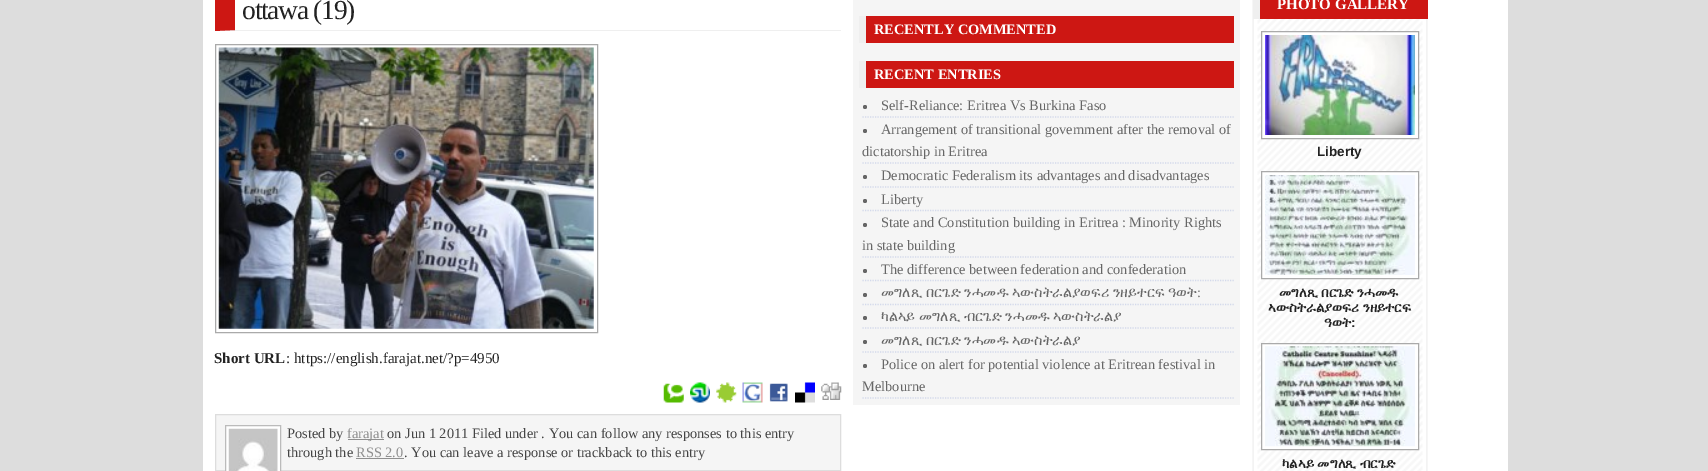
%!PS
<< /PageSize [1708 471] >> setpagedevice
/picture { 5 dict begin { /h /w /y /x /name } { exch def } forall
  gsave x y translate w h scale
  w h 8 [w 0 0 h 0 0] name (r) file false 3 colorimage grestore end } def
0 471 translate 1 -1 scale
4 setmiterlimit
0.867 setgray
0 0 1708 471 rectfill
1 setgray
203 0 1305 471 rectfill
0.937 setgray
newpath 841 31 moveto 215 31 lineto 235 30 lineto 841 30 lineto closepath fill
0.804 0.09 0.075 setrgbcolor
newpath 215 31 moveto 215 -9 lineto 235 -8 lineto 235 30 lineto closepath fill
/LiberationSerif-Regular [27.5 0 0 -27.5 0 0] selectfont
0.133 setgray
242 19 moveto -1.25 0 (ottawa \(19\)) ashow
0.667 setgray
215.5 44.5 382 288 rectstroke
(img1.rgb) 218 47 376 282 picture
/LiberationSerif-Bold [15 0 0 -15 0 0] selectfont
0.133 setgray
214 363 moveto (Short URL) show
/LiberationSerif-Regular [15 0 0 -15 0 0] selectfont
286 363 moveto (: https://english.farajat.net/?p=4950) show
(img2.rgb) 663 383 21 20 picture
(img3.rgb) 690 382 20 21 picture
(img4.rgb) 716 382 21 21 picture
(img5.rgb) 742 382 21 21 picture
(img6.rgb) 769 383 19 19 picture
(img7.rgb) 795 382 20 21 picture
(img8.rgb) 821 382 21 18 picture
0.961 setgray
newpath 215.5 414.5 moveto 840.5 414.5 lineto 840.5 470.5 lineto 215.5 470.5 lineto closepath gsave fill grestore
0.867 setgray
stroke
1 setgray
newpath 225.5 425.5 moveto 280.5 425.5 lineto 280.5 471.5 lineto 225.5 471.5 lineto closepath gsave fill grestore
0.733 setgray
stroke
(img9.rgb) 228 428 50 43 picture
/LiberationSerif-Regular [14.4 0 0 -14.4 0 0] selectfont
0.267 setgray
287 438 moveto (Posted by) show
0.561 setgray
348 439 36 1 rectfill
347 438 moveto (farajat) show
0.267 setgray
387 438 moveto (on Jun 1 2011 Filed under . You can follow any responses to this entry) show
287 457 moveto (through the) show
0.561 setgray
356 457 moveto (RSS 2.0) show
356 458 48 1 rectfill
0.267 setgray
404 457 moveto (. You can leave a response or trackback to this entry) show
0.961 setgray
853 0 387 405 rectfill
0.804 0.09 0.075 setrgbcolor
866 16 368 27 rectfill
0.937 setgray
859 16 7 27 rectfill
/LiberationSerif-Bold [14.4 0 0 -14.4 0 0] selectfont
1 setgray
874 34 moveto (RECENTLY COMMENTED) show
0.804 0.09 0.075 setrgbcolor
866 61 368 27 rectfill
0.937 setgray
859 61 7 27 rectfill
1 setgray
874 79 moveto (RECENT ENTRIES) show
0.827 0.851 0.922 setrgbcolor
1.2 setlinewidth
[1.25 1.25] 0 setdash
newpath 862.5 117 moveto 1234 117 lineto stroke
0.4 setgray
newpath 865 107 2 0 360 arc closepath fill
/LiberationSerif-Regular [14.4 0 0 -14.4 0 0] selectfont
881 110 moveto (Self-Reliance: Eritrea Vs Burkina Faso) show
0.827 0.851 0.922 setrgbcolor
newpath 862.5 163 moveto 1234 163 lineto stroke
0.4 setgray
newpath 865 131 2 0 360 arc closepath fill
881 134 moveto (Arrangement of transitional government after the removal of) show
862 156 moveto (dictatorship in Eritrea) show
0.827 0.851 0.922 setrgbcolor
newpath 862.5 187 moveto 1234 187 lineto stroke
0.4 setgray
newpath 865 177 2 0 360 arc closepath fill
881 180 moveto (Democratic Federalism its advantages and disadvantages) show
0.827 0.851 0.922 setrgbcolor
newpath 862.5 210.5 moveto 1234 210.5 lineto stroke
0.4 setgray
newpath 865 201 2 0 360 arc closepath fill
881 204 moveto (Liberty) show
0.827 0.851 0.922 setrgbcolor
newpath 862.5 257 moveto 1234 257 lineto stroke
0.4 setgray
newpath 865 225 2 0 360 arc closepath fill
881 227 moveto (State and Constitution building in Eritrea : Minority Rights) show
862 250 moveto (in state building) show
0.827 0.851 0.922 setrgbcolor
newpath 862.5 280.5 moveto 1234 280.5 lineto stroke
0.4 setgray
newpath 865 271 2 0 360 arc closepath fill
881 274 moveto (The difference between federation and confederation) show
0.827 0.851 0.922 setrgbcolor
newpath 862.5 304.5 moveto 1234 304.5 lineto stroke
0.4 setgray
newpath 865 295 2 0 360 arc closepath fill
/FreeSerif-Regular [14.4 0 0 -14.4 0 0] selectfont
881 297 moveto (መግለጺ በርጌድ ንሓመዱ ኣውስትራልያወፍሪ ንዘይተርፍ ዓወት:) show
0.827 0.851 0.922 setrgbcolor
newpath 862.5 328 moveto 1234 328 lineto stroke
0.4 setgray
newpath 865 318 2 0 360 arc closepath fill
881 321 moveto (ካልኣይ መግለጺ ብርጌድ ንሓመዱ ኣውስትራልያ) show
0.827 0.851 0.922 setrgbcolor
newpath 862.5 352 moveto 1234 352 lineto stroke
0.4 setgray
newpath 865 342 2 0 360 arc closepath fill
881 345 moveto (መግለጺ በርጌድ ንሓመዱ ኣውስትራልያ) show
0.827 0.851 0.922 setrgbcolor
newpath 862.5 398 moveto 1234 398 lineto stroke
0.4 setgray
newpath 865 366 2 0 360 arc closepath fill
/LiberationSerif-Regular [14.4 0 0 -14.4 0 0] selectfont
881 369 moveto (Police on alert for potential violence at Eritrean festival in) show
862 391 moveto (Melbourne) show
(img10.rgb) 1252 0 176 471 picture
0.804 0.09 0.075 setrgbcolor
1260 0 168 19 rectfill
0.937 setgray
1253 0 7 19 rectfill
/LiberationSerif-Bold [15 0 0 -15 0 0] selectfont
1 setgray
1277 9 moveto (PHOTO GALLERY) show
newpath 1261.5 31.5 moveto 1418.5 31.5 lineto 1418.5 138.5 lineto 1261.5 138.5 lineto closepath gsave fill grestore
0.667 setgray
1 setlinewidth
[] 0 setdash
stroke
(img11.rgb) 1265 35 150 100 picture
/LiberationSans-Bold [13.5 0 0 -13.5 0 0] selectfont
0.133 setgray
1317 156 moveto (Liberty) show
1 setgray
newpath 1261.5 171.5 moveto 1418.5 171.5 lineto 1418.5 278.5 lineto 1261.5 278.5 lineto closepath gsave fill grestore
0.667 setgray
stroke
(img12.rgb) 1265 175 150 100 picture
/FreeSerif-Bold [13.5 0 0 -13.5 0 0] selectfont
0.133 setgray
1279 297 moveto (መግለጺ በርጌድ ንሓመዱ) show
1268 312 moveto (ኣውስትራልያወፍሪ ንዘይተርፍ) show
1324 327 moveto (ዓወት) show
/LiberationSans-Bold [13.5 0 0 -13.5 0 0] selectfont
1351 327 moveto (:) show
1 setgray
newpath 1261.5 343.5 moveto 1418.5 343.5 lineto 1418.5 449.5 lineto 1261.5 449.5 lineto closepath gsave fill grestore
0.667 setgray
stroke
(img13.rgb) 1265 346 150 101 picture
/FreeSerif-Bold [13.5 0 0 -13.5 0 0] selectfont
0.133 setgray
1282 468 moveto (ካልኣይ መግለጺ ብርጌድ) show
showpage
